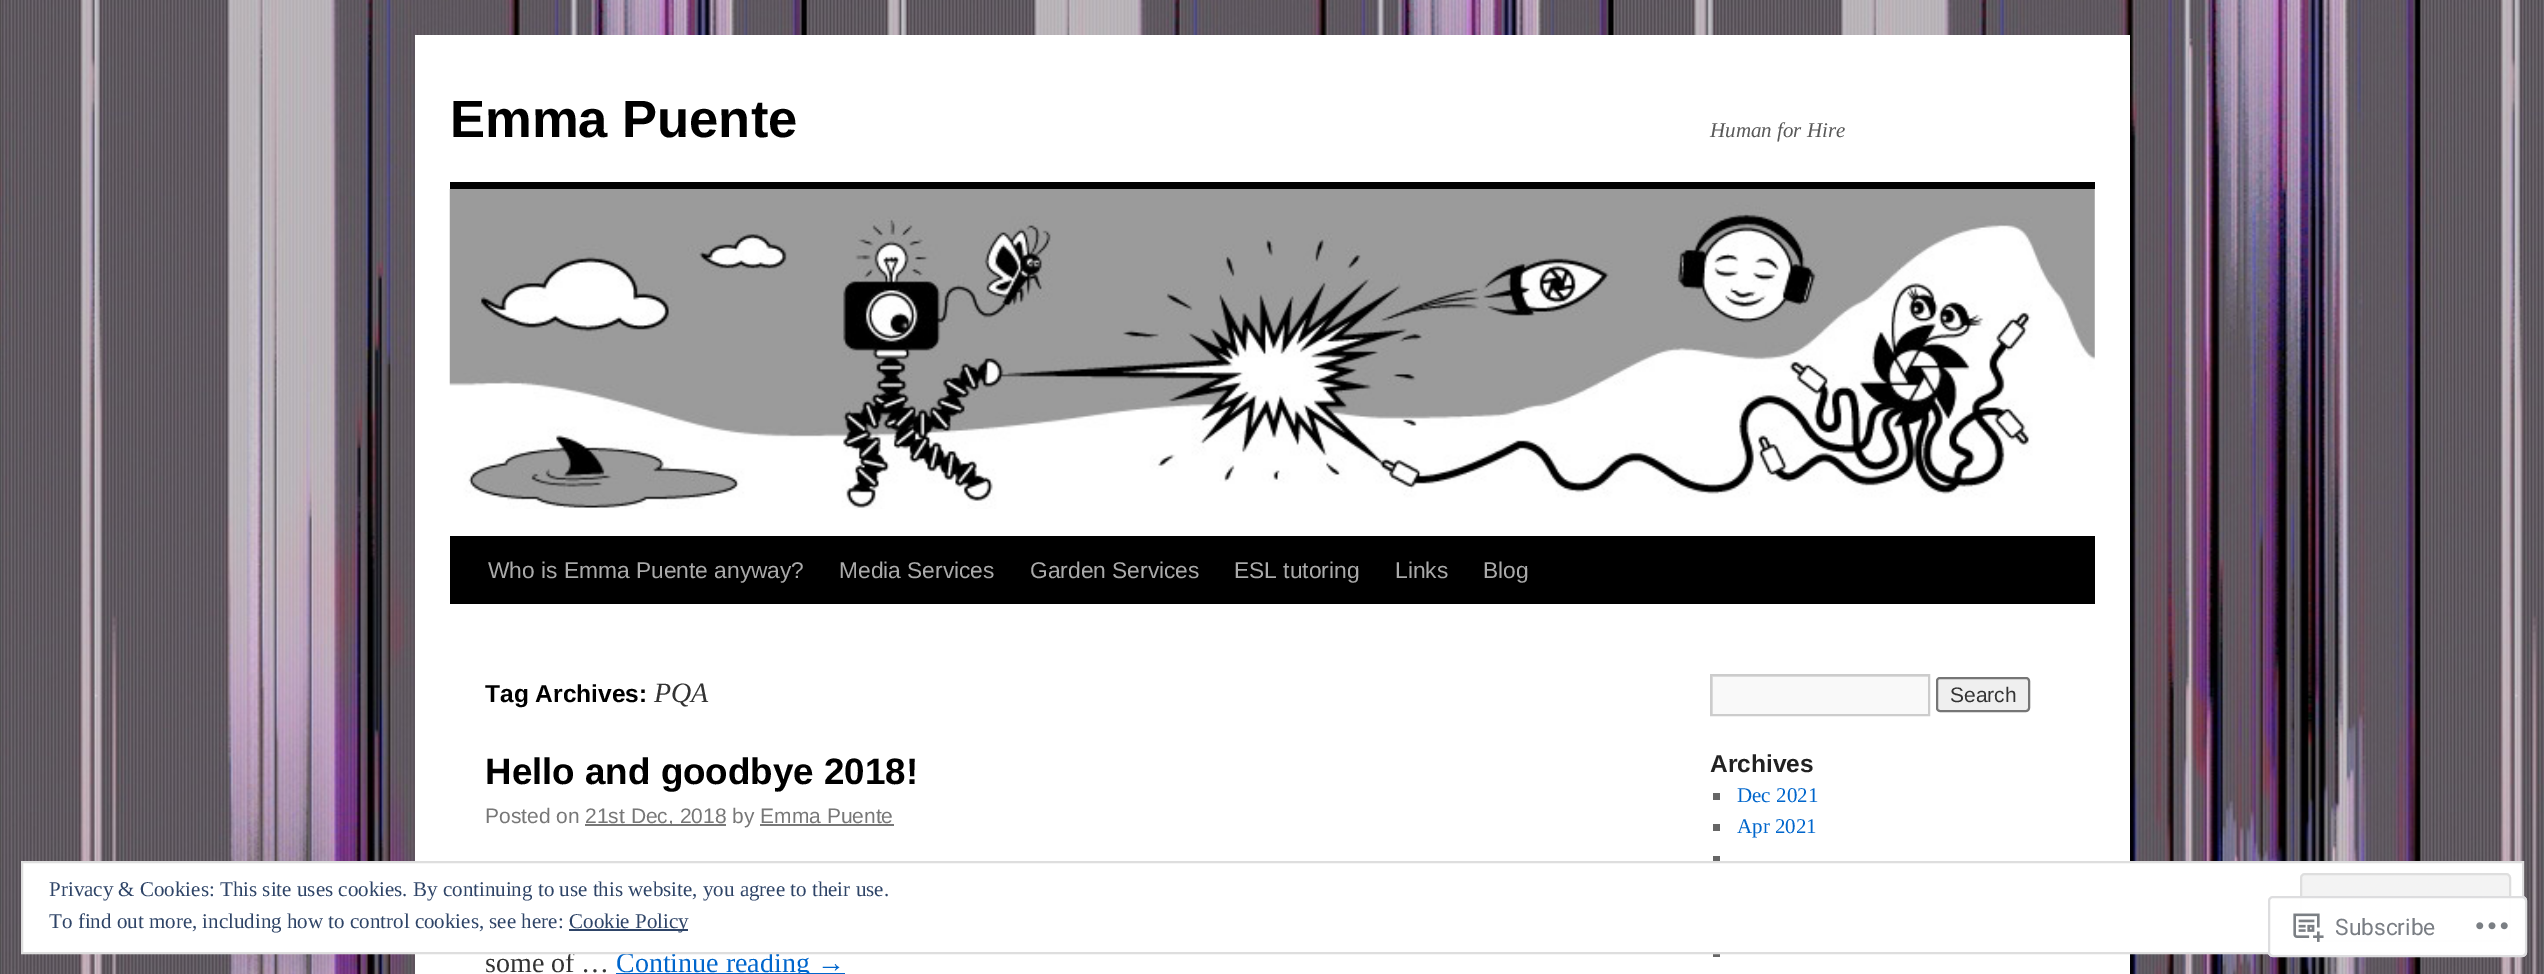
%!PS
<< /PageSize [2544 974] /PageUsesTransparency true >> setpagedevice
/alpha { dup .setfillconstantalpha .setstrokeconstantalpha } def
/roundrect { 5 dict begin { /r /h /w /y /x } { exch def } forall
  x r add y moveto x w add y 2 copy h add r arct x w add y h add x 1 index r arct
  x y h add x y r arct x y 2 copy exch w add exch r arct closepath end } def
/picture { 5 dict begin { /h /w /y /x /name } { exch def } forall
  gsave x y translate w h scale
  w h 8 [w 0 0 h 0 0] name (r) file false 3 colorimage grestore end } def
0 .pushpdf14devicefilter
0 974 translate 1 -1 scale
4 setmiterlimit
1 setgray
0 0 2544 974 rectfill
(img1.rgb) 0 0 2544 974 picture
415 35 1715 939 rectfill
/LiberationSans-Bold [52.5 0 0 -52.5 0 0] selectfont
0 setgray
450 137 moveto (Emma Puente) show
/LiberationSerif-Italic [21 0 0 -21 0 0] selectfont
0.349 setgray
1710 137 moveto (Human for Hire) show
0 setgray
450 182 1645 7 rectfill
450 536 1645 68 rectfill
(img2.rgb) 449 189 1646 320 picture
/LiberationSans-Regular [22.75 0 0 -22.75 0 0] selectfont
0.667 setgray
488 578 moveto (Who is Emma Puente anyway?) show
839 578 moveto (Media Services) show
1030 578 moveto (Garden Services) show
1234 578 moveto (ESL tutoring) show
1395 578 moveto (Links) show
1483 578 moveto (Blog) show
/LiberationSans-Bold [24.5 0 0 -24.5 0 0] selectfont
0 setgray
485 702 moveto (Tag Archives:) show
/LiberationSerif-Italic [28 0 0 -28 0 0] selectfont
0.2 setgray
654 702 moveto (PQA) show
/LiberationSans-Bold [36.75 0 0 -36.75 0 0] selectfont
0 setgray
485 784 moveto (Hello and goodbye 2018!) show
/LiberationSans-Regular [21 0 0 -21 0 0] selectfont
0.467 setgray
485 823 moveto (Posted on) show
585 824 141 2 rectfill
585 823 moveto (21st Dec, 2018 by Emma Puente) show
760 824 134 2 rectfill
/LiberationSerif-Regular [28 0 0 -28 0 0] selectfont
0.2 setgray
485 972 moveto (some of …) show
0 0.4 0.8 setrgbcolor
616 973 229 1 rectfill
616 972 moveto (Continue reading →) show
0.976 setgray
1713 677 215 37 rectfill
gsave
1712 676 217 38 rectclip
0.878 setgray
newpath 1538 502 moveto 2102 502 lineto 2102 887 lineto 1538 887 lineto closepath 1713 677 moveto 1930 677 lineto 1930 716 lineto 1713 716 lineto closepath eofill
grestore
0.8 setgray
2 setlinewidth
1711 675 218 40 rectstroke
0.937 setgray
1937 678 92 33 3 roundrect gsave fill grestore
0.463 setgray
stroke
/LiberationSans-Regular [21 0 0 -21 0 0] selectfont
0.2 setgray
1950 702 moveto (Search) show
/LiberationSans-Bold [24.5 0 0 -24.5 0 0] selectfont
0.133 setgray
1710 772 moveto (Archives) show
0.4 setgray
1713 793 7 7 rectfill
/LiberationSerif-Regular [21 0 0 -21 0 0] selectfont
0 0.4 0.8 setrgbcolor
1737 802 moveto (Dec 2021) show
0.4 setgray
1713 824 7 7 rectfill
0 0.4 0.8 setrgbcolor
1737 833 moveto (Apr 2021) show
0.4 setgray
1713 856 7 5 rectfill
1713 954 7 3 rectfill
1 setgray
newpath 22 862 moveto 2523 862 lineto 2523 953 lineto 22 953 lineto closepath gsave fill grestore
0.871 setgray
stroke
0.18 0.267 0.404 setrgbcolor
49 896 moveto (Privacy & Cookies: This site uses cookies. By continuing to use this website, you agree to their use.) show
0.953 setgray
2301 874 209 67 4 roundrect gsave fill grestore
0.871 setgray
stroke
0.18 0.267 0.404 setrgbcolor
49 928 moveto (To find out more, including how to control cookies, see here:) show
569 929 119 2 rectfill
569 928 moveto (Cookie Policy) show
0.98 alpha
1 setgray
2268 896 259 61 5 roundrect fill
0.863 0.863 0.871 setrgbcolor
2269 897 257 59 4 roundrect stroke
1 alpha
(img3.rgb) 2293 913 31 29 picture
/Roboto-Regular [22.75 0 0 -22.75 0 0] selectfont
0.478 0.494 0.518 setrgbcolor
2335 935 moveto (Subscribe) show
(img4.rgb) 2476 922 32 8 picture
.poppdf14devicefilter showpage
